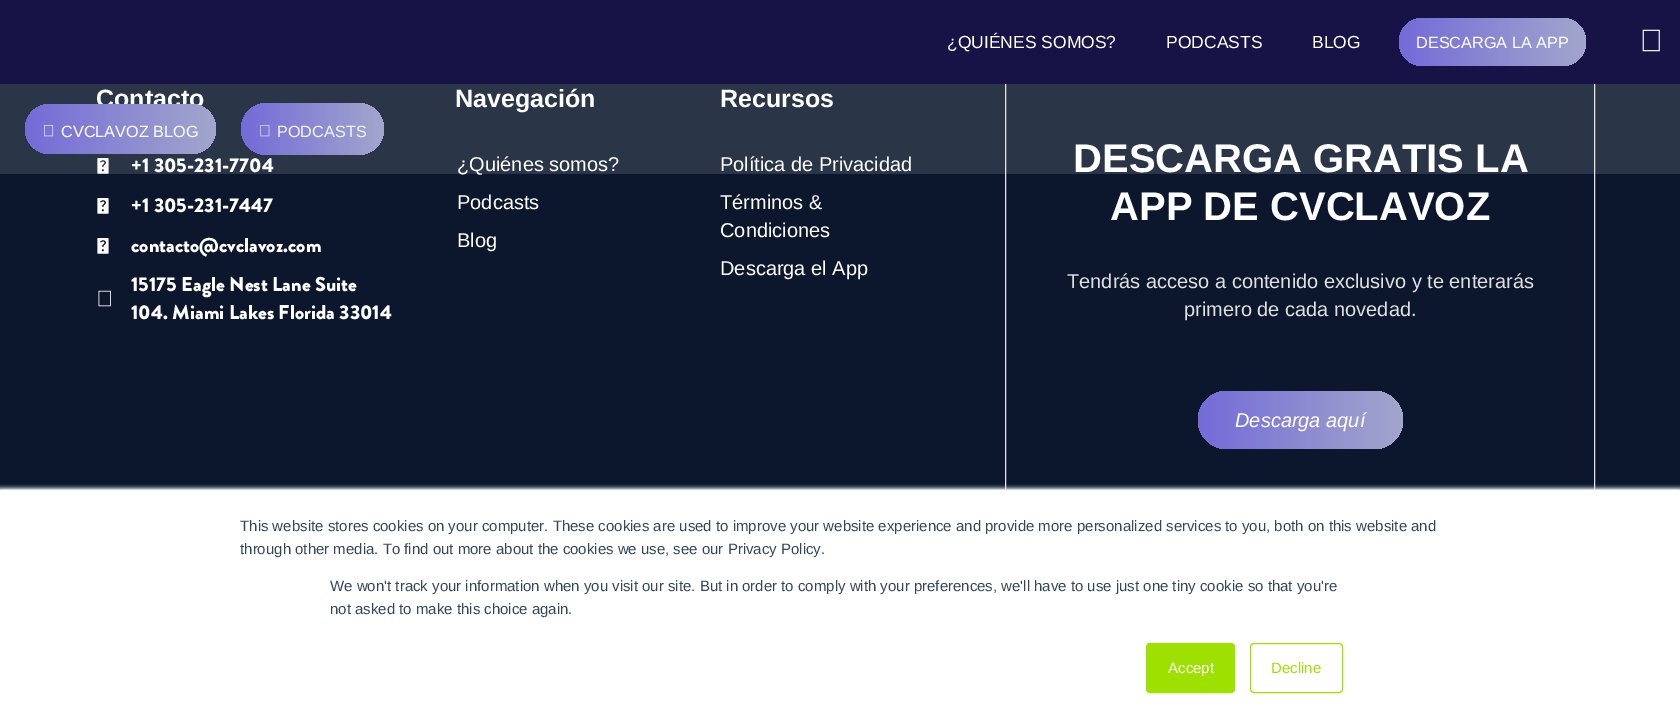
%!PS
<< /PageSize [1680 724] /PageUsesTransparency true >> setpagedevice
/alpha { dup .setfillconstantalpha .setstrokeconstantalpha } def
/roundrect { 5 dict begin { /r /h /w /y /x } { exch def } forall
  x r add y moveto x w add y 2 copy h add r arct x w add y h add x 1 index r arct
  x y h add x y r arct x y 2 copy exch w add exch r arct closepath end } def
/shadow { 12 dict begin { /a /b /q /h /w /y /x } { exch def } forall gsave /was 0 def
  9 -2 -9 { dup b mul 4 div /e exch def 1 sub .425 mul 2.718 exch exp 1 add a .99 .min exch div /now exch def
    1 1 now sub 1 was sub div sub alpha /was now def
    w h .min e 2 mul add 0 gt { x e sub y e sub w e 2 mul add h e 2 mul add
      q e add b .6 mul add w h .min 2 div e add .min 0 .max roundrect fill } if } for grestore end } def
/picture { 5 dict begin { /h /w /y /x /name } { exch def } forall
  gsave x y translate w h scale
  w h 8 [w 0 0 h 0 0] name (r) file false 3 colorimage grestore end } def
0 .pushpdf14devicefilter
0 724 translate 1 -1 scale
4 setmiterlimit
0.047 0.09 0.176 setrgbcolor
0 0 1680 724 rectfill
0.878 setgray
1005.5 71.5 589 441 rectstroke
0.09 0.075 0.278 setrgbcolor
0 0 1680 84 rectfill
/LiberationSans-Regular [17.5 0 0 -17.5 0 0] selectfont
1 setgray
947 48 moveto (¿QUIÉNES SOMOS?) show
1166 48 moveto (PODCASTS) show
1312 48 moveto (BLOG) show
gsave 1399 18 187 48 24 roundrect clip newpath
<< /ShadingType 2 /ColorSpace /DeviceRGB /Coords [1399 42 1586 42] /Extend [true true] /Function << /FunctionType 2 /Domain [0 1] /C0 [0.455 0.42 0.847] /C1 [0.635 0.651 0.8] /N 1 >> >> shfill grestore
/LiberationSans-Regular [16.25 0 0 -16.25 0 0] selectfont
1416 48 moveto (DESCARGA LA APP) show
(img1.rgb) 1642 29 18 23 picture
(img4.rgb) 97 158 12 16 picture
0.13 alpha
0.992 0.988 1 setrgbcolor
0 84 1680 90 rectfill
/LiberationSans-Bold [25 0 0 -25 0 0] selectfont
1 alpha
1 setgray
96 107 moveto (Contacto) show
gsave 25 104 191 50 25 roundrect clip newpath
<< /ShadingType 2 /ColorSpace /DeviceRGB /Coords [25 129 216 129] /Extend [true true] /Function << /FunctionType 2 /Domain [0 1] /C0 [0.455 0.42 0.847] /C1 [0.635 0.651 0.8] /N 1 >> >> shfill grestore
(img2.rgb) 44 125 10 12 picture
/LiberationSans-Regular [16.25 0 0 -16.25 0 0] selectfont
61 137 moveto (CVCLAVOZ BLOG) show
gsave 241 103 143 52 26 roundrect clip newpath
<< /ShadingType 2 /ColorSpace /DeviceRGB /Coords [241 129 384 129] /Extend [true true] /Function << /FunctionType 2 /Domain [0 1] /C0 [0.455 0.42 0.847] /C1 [0.635 0.651 0.8] /N 1 >> >> shfill grestore
(img3.rgb) 260 125 10 12 picture
0.961 0.965 0.973 setrgbcolor
277 137 moveto (PODCASTS) show
/BrandonGrotesque-Black [20 0 0 -20 0 0] selectfont
1 setgray
131 172 moveto (+1 305-231-7704) show
(img4.rgb) 97 198 12 16 picture
131 212 moveto (+1 305-231-7447) show
(img4.rgb) 97 238 12 16 picture
131 252 moveto (contacto@cvclavoz.com) show
(img5.rgb) 98 290 13 17 picture
131 291 moveto (15175 Eagle Nest Lane Suite) show
131 319 moveto (104. Miami Lakes Florida 33014) show
/LiberationSans-Bold [25 0 0 -25 0 0] selectfont
455 107 moveto (Navegación) show
/LiberationSans-Regular [20 0 0 -20 0 0] selectfont
457 171 moveto (¿Quiénes somos?) show
457 209 moveto (Podcasts) show
457 247 moveto (Blog) show
/LiberationSans-Bold [25 0 0 -25 0 0] selectfont
720 107 moveto (Recursos) show
/LiberationSans-Regular [20 0 0 -20 0 0] selectfont
720 171 moveto (Política de Privacidad) show
720 209 moveto (Términos &) show
720 237 moveto (Condiciones) show
720 275 moveto (Descarga el App) show
/LiberationSans-Bold [40 0 0 -40 0 0] selectfont
1073 172 moveto (DESCARGA GRATIS LA) show
1110 220 moveto (APP DE CVCLAVOZ) show
/LiberationSans-Regular [20 0 0 -20 0 0] selectfont
0.878 setgray
1067 288 moveto (Tendrás acceso a contenido exclusivo y te enterarás) show
1184 316 moveto (primero de cada novedad.) show
gsave 1198 391 205 58 29 roundrect clip newpath
<< /ShadingType 2 /ColorSpace /DeviceRGB /Coords [1198 420 1403 420] /Extend [true true] /Function << /FunctionType 2 /Domain [0 1] /C0 [0.455 0.42 0.847] /C1 [0.635 0.651 0.8] /N 1 >> >> shfill grestore
/LiberationSans-Italic [20 0 0 -20 0 0] selectfont
1 setgray
1235 427 moveto (Descarga aquí) show
0.918 0.941 0.965 setrgbcolor
0 488 1680 236 0 2 1 shadow
1 setgray
0 490 1680 234 rectfill
0.796 0.839 0.886 setrgbcolor
0 489 1680 1 rectfill
/LiberationSans-Regular [15 0 0 -15 0 0] selectfont
0.2 0.278 0.357 setrgbcolor
240 531 moveto (This website stores cookies on your computer. These cookies are used to improve your website experience and provide more personalized services to you, both on this website and) show
240 554 moveto (through other media. To find out more about the cookies we use, see our Privacy Policy.) show
330 591 moveto (We won't track your information when you visit our site. But in order to comply with your preferences, we'll have to use just one tiny cookie so that you're) show
330 614 moveto (not asked to make this choice again.) show
0.62 0.882 0.004 setrgbcolor
1146.5 643.5 88 49 3.5 roundrect gsave fill grestore
stroke
1 setgray
1168 673 moveto (Accept) show
0.62 0.882 0.004 setrgbcolor
1250.5 643.5 92 49 3.5 roundrect stroke
1271 673 moveto (Decline) show
.poppdf14devicefilter showpage
